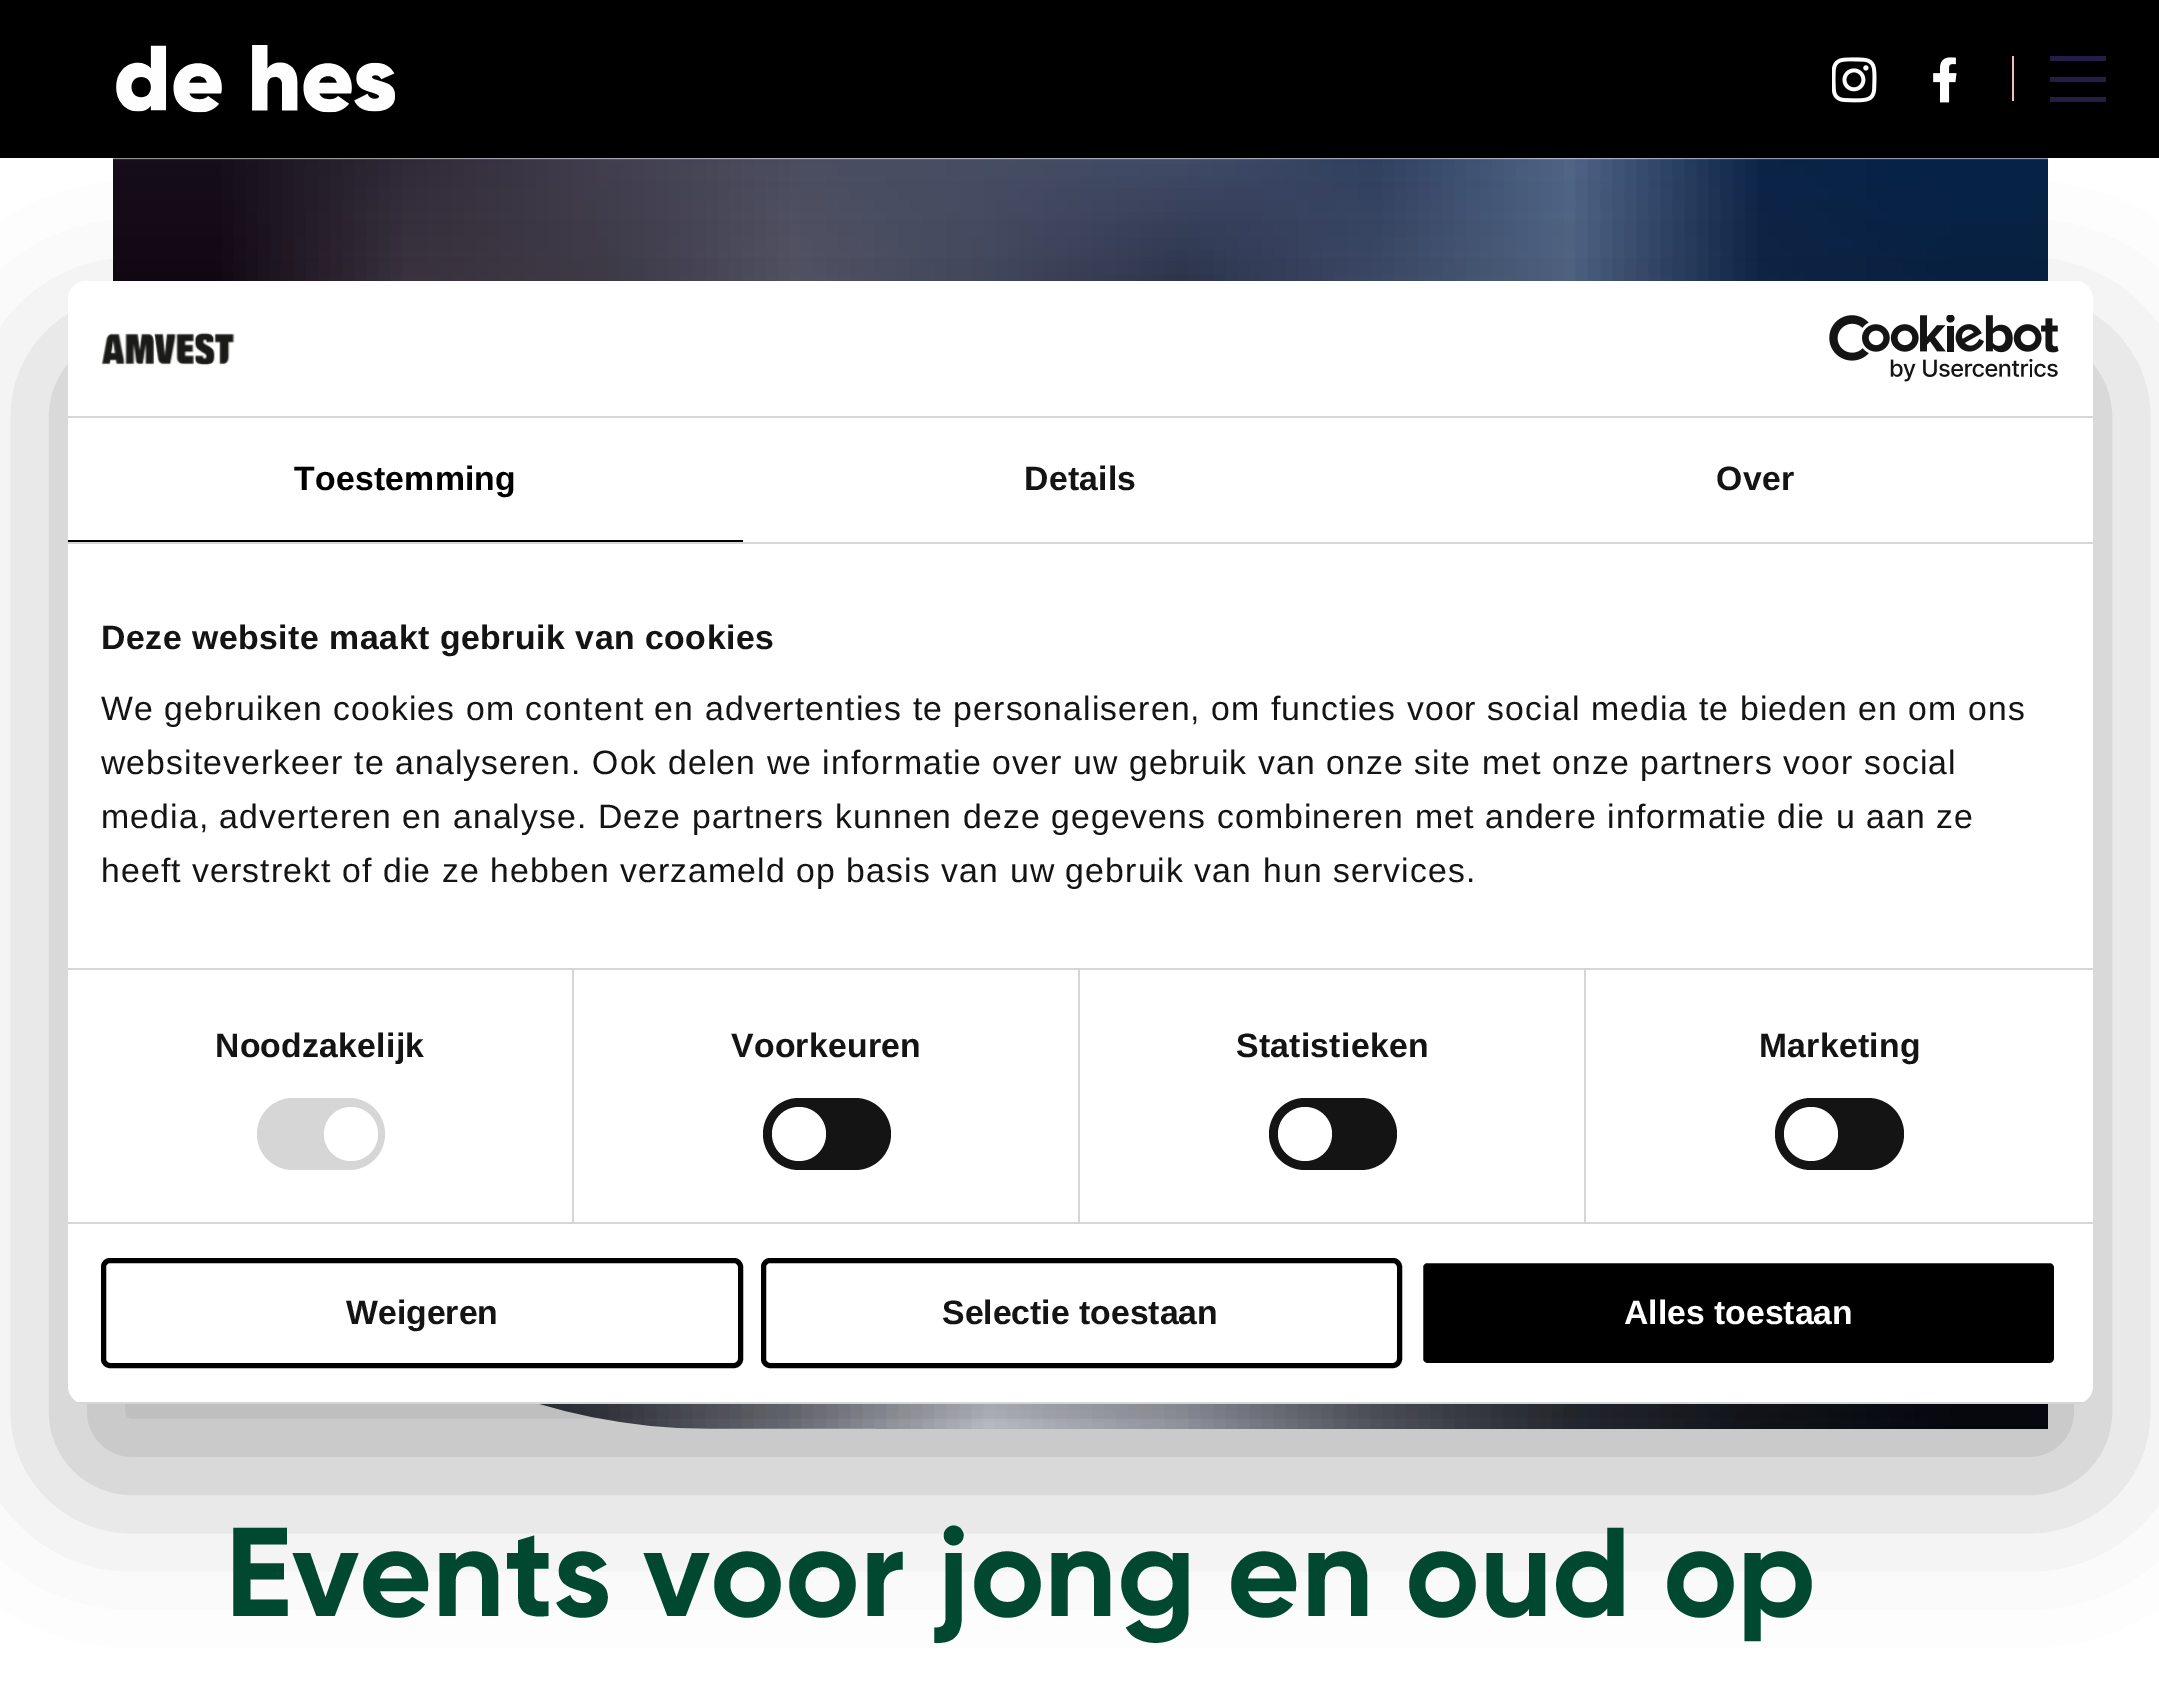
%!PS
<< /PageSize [2159 1681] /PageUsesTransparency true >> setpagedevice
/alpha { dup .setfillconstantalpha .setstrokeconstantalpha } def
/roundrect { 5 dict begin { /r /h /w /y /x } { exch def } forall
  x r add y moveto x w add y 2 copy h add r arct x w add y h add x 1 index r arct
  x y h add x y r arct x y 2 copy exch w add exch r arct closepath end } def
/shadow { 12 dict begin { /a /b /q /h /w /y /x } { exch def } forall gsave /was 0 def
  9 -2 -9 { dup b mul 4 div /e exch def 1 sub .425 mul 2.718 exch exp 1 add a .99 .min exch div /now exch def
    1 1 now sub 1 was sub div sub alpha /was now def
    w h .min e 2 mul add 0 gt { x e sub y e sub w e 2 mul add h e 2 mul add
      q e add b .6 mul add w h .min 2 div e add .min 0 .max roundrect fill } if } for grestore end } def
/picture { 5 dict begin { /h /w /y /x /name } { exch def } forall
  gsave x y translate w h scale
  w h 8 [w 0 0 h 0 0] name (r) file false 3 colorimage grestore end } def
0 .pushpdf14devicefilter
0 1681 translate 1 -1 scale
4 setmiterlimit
1 setgray
0 0 2159 1681 rectfill
0 setgray
0 0 2159 158 rectfill
(img6.rgb) 113 158 1935 1271 picture
68 353 2025 1123 18 76.5 0.3 shadow
1 setgray
68 281 2025 1123 18 roundrect fill
0.839 setgray
68 416 2025 2 rectfill
(img1.rgb) 101 332 134 34 picture
(img2.rgb) 1829 315 230 67 picture
68 542 2025 2 rectfill
0 setgray
68 540 675 2 rectfill
/LiberationSans-Bold [33.75 0 0 -33.75 0 0] selectfont
294 490 moveto 0.25 0 (Toestemming) ashow
0.078 setgray
1024 490 moveto 0.25 0 (Details) ashow
1716 490 moveto 0.25 0 (Over) ashow
0.839 setgray
68 968 2025 2 rectfill
0.078 setgray
101 649 moveto 0.55 0 (Deze website maakt gebruik van cookies) ashow
/LiberationSans-Regular [33.75 0 0 -33.75 0 0] selectfont
101 720 moveto 1.12 0 (We gebruiken cookies om content en advertenties te personaliseren, om functies voor social media te bieden en om ons) ashow
101 774 moveto 1.12 0 (websiteverkeer te analyseren. Ook delen we informatie over uw gebruik van onze site met onze partners voor social) ashow
101 828 moveto 1.12 0 (media, adverteren en analyse. Deze partners kunnen deze gegevens combineren met andere informatie die u aan ze) ashow
101 882 moveto 1.12 0 (heeft verstrekt of die ze hebben verzameld op basis van uw gebruik van hun services.) ashow
0.839 setgray
68 1222 2025 2 rectfill
572 970 2 252 rectfill
/LiberationSans-Bold [33.75 0 0 -33.75 0 0] selectfont
0.078 setgray
215 1057 moveto 0.25 0 (Noodzakelijk) ashow
0.839 setgray
257 1098 128 72 36 roundrect fill
1 setgray
newpath 351 1134 27 0 360 arc closepath fill
0.839 setgray
1078 970 2 252 rectfill
0.078 setgray
731 1057 moveto 0.25 0 (Voorkeuren) ashow
763 1098 128 72 36 roundrect fill
1 setgray
newpath 799 1134 27 0 360 arc closepath fill
0.839 setgray
1584 970 2 252 rectfill
0.078 setgray
1236 1057 moveto 0.25 0 (Statistieken) ashow
1269 1098 128 72 36 roundrect fill
1 setgray
newpath 1305 1134 27 0 360 arc closepath fill
0.078 setgray
1759 1057 moveto 0.25 0 (Marketing) ashow
1775 1098 129 72 36 roundrect fill
1 setgray
newpath 1811 1134 27 0 360 arc closepath fill
gsave
68 281 2025 1123 18 roundrect clip newpath
0.839 setgray
78 1402 2005 2 rectfill
grestore
0 setgray
5 setlinewidth
103.5 1260.5 637 105 6.5 roundrect stroke
0.078 setgray
346 1324 moveto (Weigeren) show
0 setgray
763.5 1260.5 636 105 6.5 roundrect stroke
0.078 setgray
942 1324 moveto (Selectie toestaan) show
0 setgray
1420.5 1260.5 636 105 6.5 roundrect gsave fill grestore
1 setgray
stroke
1624 1324 moveto (Alles toestaan) show
(img3.rgb) 116 45 279 68 picture
0.969 0.737 0.702 setrgbcolor
2012 56 2 45 rectfill
(img4.rgb) 1832 57 45 46 picture
(img5.rgb) 1933 57 24 46 picture
0.141 0.118 0.275 setrgbcolor
2050 97 56 5 rectfill
2050 56 56 5 rectfill
2050 77 56 5 rectfill
/Gilroy-Bold [126 0 0 -126 0 0] selectfont
0 0.286 0.188 setrgbcolor
225 1616 moveto (Events voor jong en oud op) show
.poppdf14devicefilter showpage
